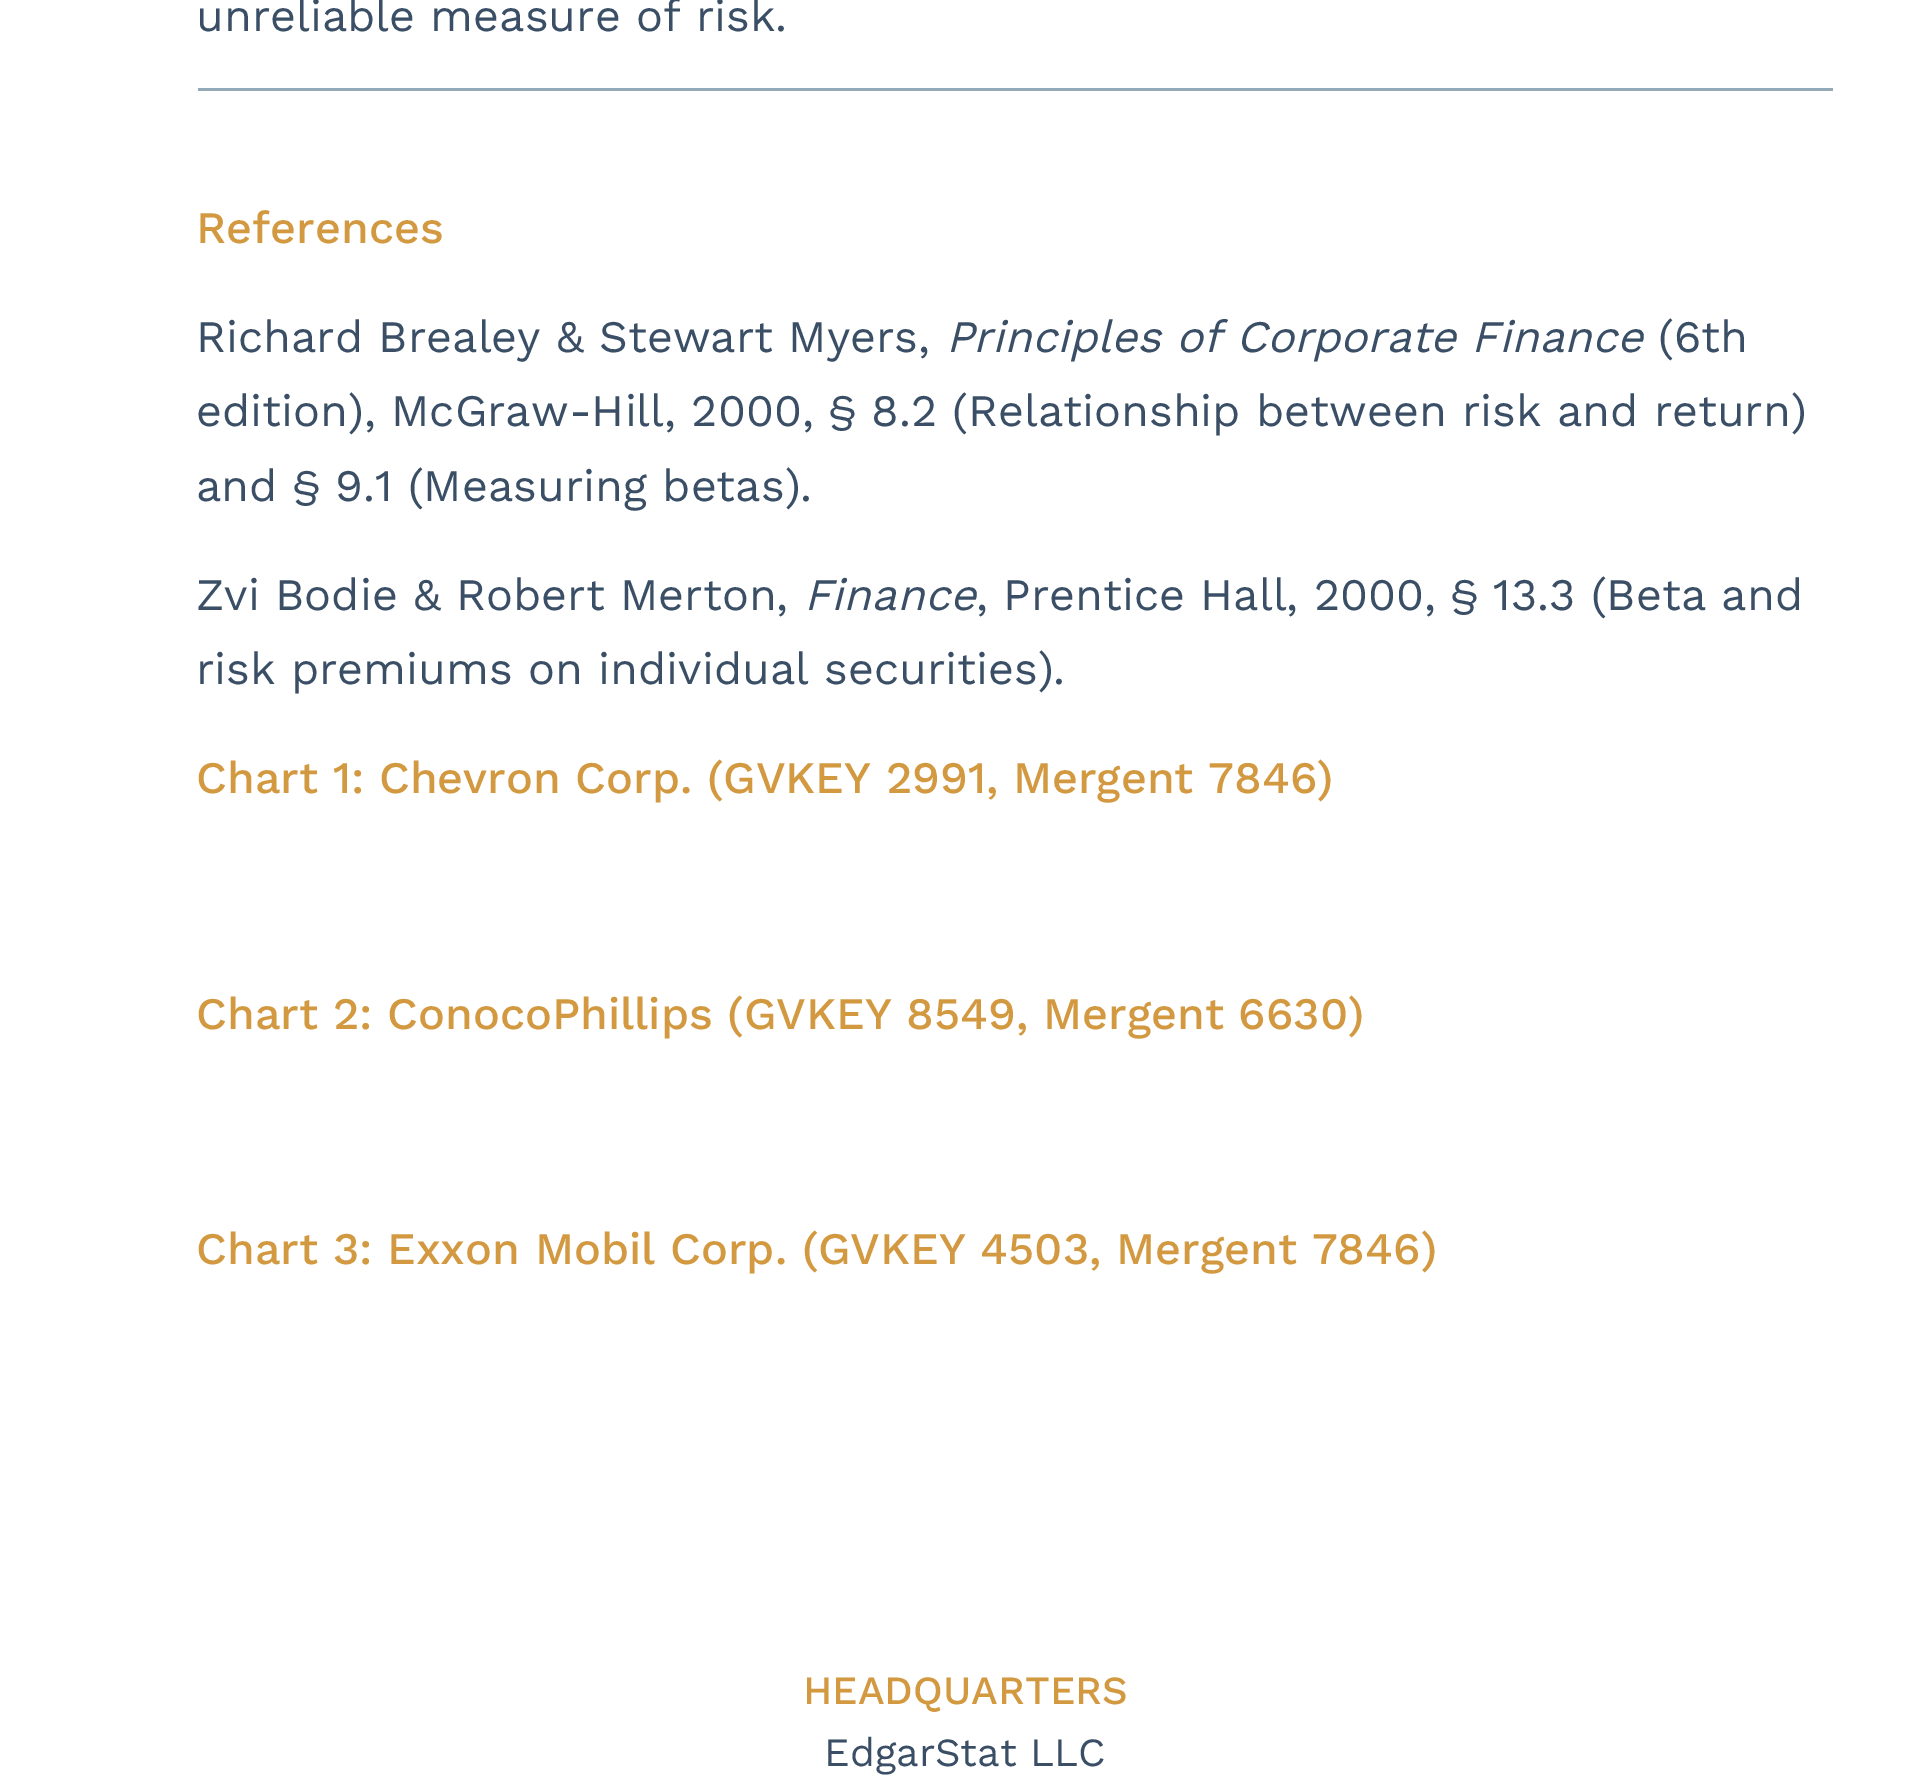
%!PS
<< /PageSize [1930 1775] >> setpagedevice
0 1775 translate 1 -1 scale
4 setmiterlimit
1 setgray
0 0 1930 1775 rectfill
/WorkSans-Regular [45 0 0 -45 0 0] selectfont
0.227 0.31 0.4 setrgbcolor
196 31 moveto (unreliable measure of risk.) show
0.58 0.663 0.722 setrgbcolor
198 88 1635 3 rectfill
/WorkSans-Medium [45 0 0 -45 0 0] selectfont
0.827 0.6 0.255 setrgbcolor
196 243 moveto (References) show
/WorkSans-Regular [45 0 0 -45 0 0] selectfont
0.227 0.31 0.4 setrgbcolor
196 352 moveto (Richard Brealey & Stewart Myers,) show
/WorkSans-Italic [45 0 0 -45 0 0] selectfont
946 352 moveto (Principles of Corporate Finance) show
/WorkSans-Regular [45 0 0 -45 0 0] selectfont
1658 352 moveto (\(6th) show
196 426 moveto (edition\), McGraw-Hill, 2000, § 8.2 \(Relationship between risk and return\)) show
196 501 moveto (and § 9.1 \(Measuring betas\).) show
196 610 moveto (Zvi Bodie & Robert Merton,) show
/WorkSans-Italic [45 0 0 -45 0 0] selectfont
804 610 moveto (Finance) show
/WorkSans-Regular [45 0 0 -45 0 0] selectfont
976 610 moveto (, Prentice Hall, 2000, § 13.3 \(Beta and) show
196 684 moveto (risk premiums on individual securities\).) show
/WorkSans-Medium [45 0 0 -45 0 0] selectfont
0.827 0.6 0.255 setrgbcolor
196 793 moveto (Chart 1: Chevron Corp. \(GVKEY 2991, Mergent 7846\)) show
196 1029 moveto (Chart 2: ConocoPhillips \(GVKEY 8549, Mergent 6630\)) show
196 1264 moveto (Chart 3: Exxon Mobil Corp. \(GVKEY 4503, Mergent 7846\)) show
/WorkSans-Medium [40 0 0 -40 0 0] selectfont
803 1704 moveto (HEADQUARTERS) show
/WorkSans-Regular [40 0 0 -40 0 0] selectfont
0.227 0.31 0.4 setrgbcolor
824 1766 moveto (EdgarStat LLC) show
showpage
